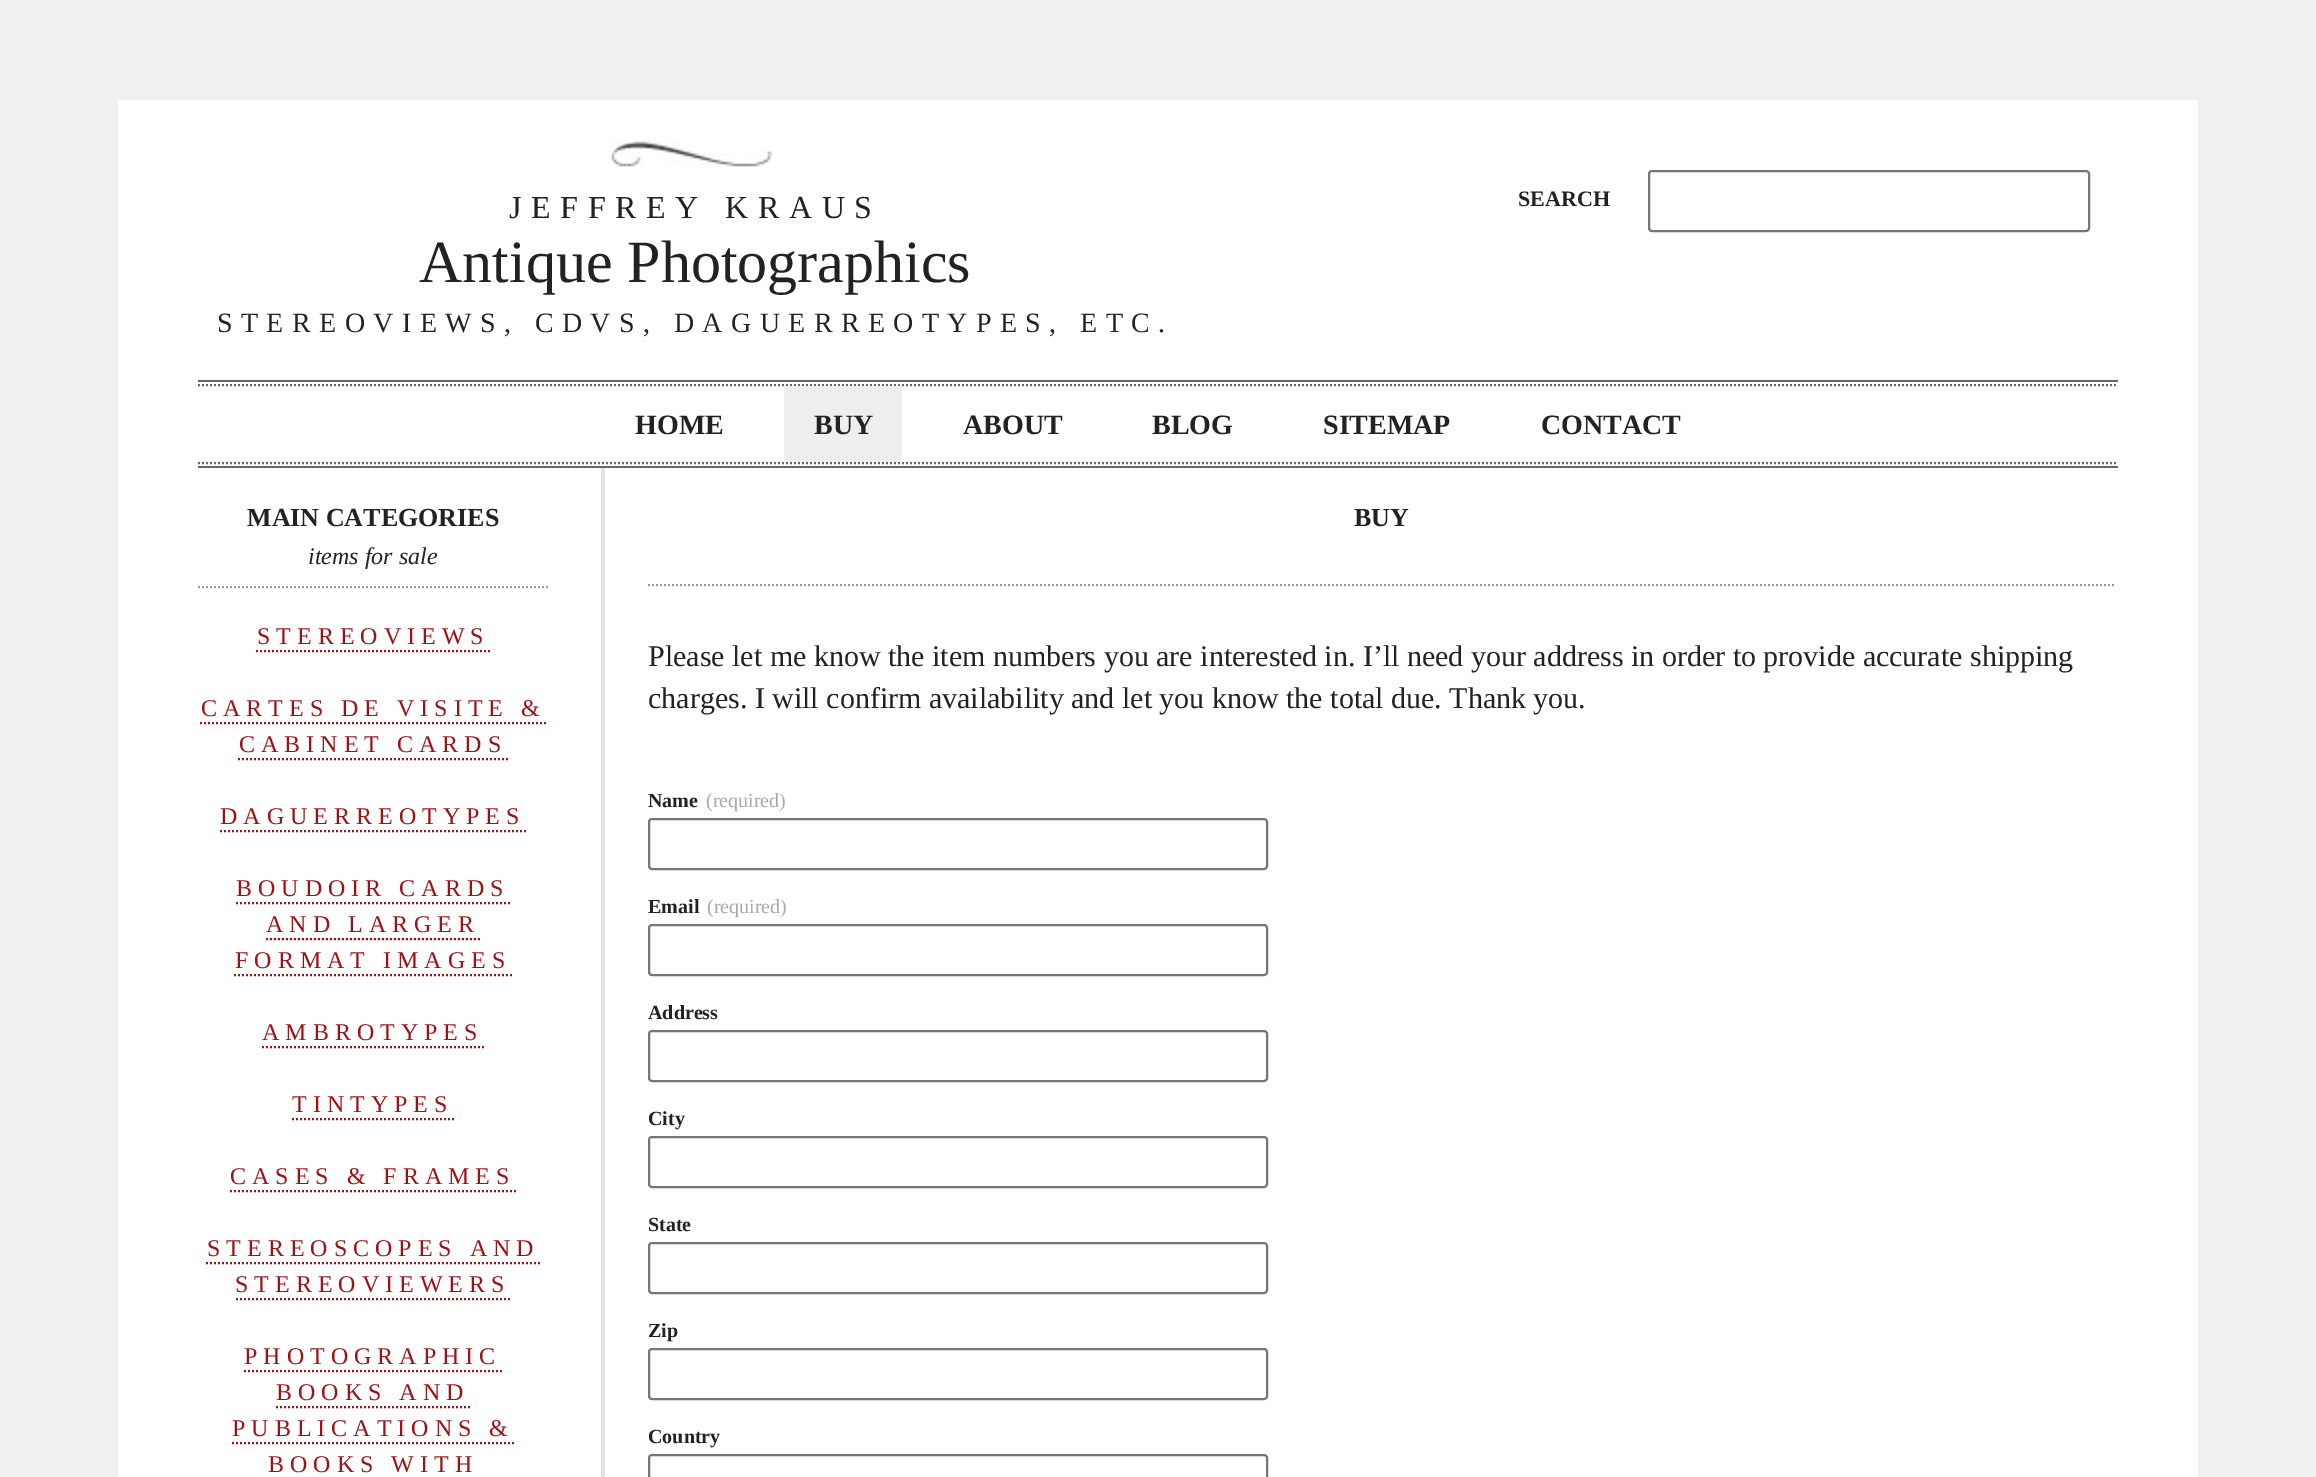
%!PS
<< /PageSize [2316 1477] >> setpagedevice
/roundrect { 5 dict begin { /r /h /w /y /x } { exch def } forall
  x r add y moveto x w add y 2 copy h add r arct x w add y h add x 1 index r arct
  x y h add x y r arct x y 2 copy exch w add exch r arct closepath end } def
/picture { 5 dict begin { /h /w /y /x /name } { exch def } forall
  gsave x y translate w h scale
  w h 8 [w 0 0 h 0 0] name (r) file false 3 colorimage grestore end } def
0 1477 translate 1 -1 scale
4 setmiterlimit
0.941 setgray
0 0 2316 1477 rectfill
1 setgray
118 100 2080 1377 rectfill
0.4 setgray
198 466 1920 2 rectfill
(img1.rgb) 610 140 163 27 picture
198 380 1920 2 rectfill
/LiberationSerif-Regular [32 0 0 -32 0 0] selectfont
0.133 setgray
509 218 moveto 9.6 0 (JEFFREY KRAUS) ashow
/LiberationSerif-Regular [60 0 0 -60 0 0] selectfont
419 282 moveto (Antique Photographics) show
/LiberationSerif-Regular [28 0 0 -28 0 0] selectfont
217 332 moveto 8.4 0 (STEREOVIEWS, CDVS, DAGUERREOTYPES, ETC.) ashow
/LiberationSerif-Bold [22 0 0 -22 0 0] selectfont
1518 206 moveto (SEARCH) show
0.463 setgray
2 setlinewidth
1649 171 440 60 3 roundrect stroke
0.4 setgray
[2 2] 0 setdash
newpath 198 385 moveto 2118 385 lineto stroke
newpath 198 463 moveto 2118 463 lineto stroke
/LiberationSerif-Bold [28 0 0 -28 0 0] selectfont
0.133 setgray
635 434 moveto (HOME) show
0.933 setgray
784 386 118 76 rectfill
0.133 setgray
814 434 moveto (BUY) show
963 434 moveto (ABOUT) show
1152 434 moveto (BLOG) show
1323 434 moveto (SITEMAP) show
1541 434 moveto (CONTACT) show
0.894 setgray
601 468 4 1009 rectfill
0.6 setgray
newpath 198 587 moveto 548 587 lineto stroke
/LiberationSerif-Bold [26 0 0 -26 0 0] selectfont
0.133 setgray
247 526 moveto (MAIN CATEGORIES) show
/LiberationSerif-Italic [24 0 0 -24 0 0] selectfont
308 564 moveto (items for sale) show
/LiberationSerif-Regular [24 0 0 -24 0 0] selectfont
0.62 0.067 0.078 setrgbcolor
257 644 moveto 6 0 (STEREOVIEWS) ashow
newpath 256 651 moveto 490 651 lineto stroke
201 716 moveto 6 0 (CARTES DE VISITE &) ashow
newpath 200 723 moveto 546 723 lineto stroke
239 752 moveto 6 0 (CABINET CARDS) ashow
newpath 238 759 moveto 508 759 lineto stroke
220 824 moveto 6 0 (DAGUERREOTYPES) ashow
newpath 220 831 moveto 526 831 lineto stroke
236 896 moveto 6 0 (BOUDOIR CARDS) ashow
newpath 236 903 moveto 510 903 lineto stroke
266 932 moveto 6 0 (AND LARGER) ashow
newpath 266 939 moveto 480 939 lineto stroke
235 968 moveto 6 0 (FORMAT IMAGES) ashow
newpath 234 975 moveto 512 975 lineto stroke
262 1040 moveto 6 0 (AMBROTYPES) ashow
newpath 262 1047 moveto 484 1047 lineto stroke
292 1112 moveto 6 0 (TINTYPES) ashow
newpath 292 1119 moveto 454 1119 lineto stroke
230 1184 moveto 6 0 (CASES & FRAMES) ashow
newpath 230 1191 moveto 516 1191 lineto stroke
207 1256 moveto 6 0 (STEREOSCOPES AND) ashow
newpath 206 1263 moveto 540 1263 lineto stroke
235 1292 moveto 6 0 (STEREOVIEWERS) ashow
newpath 236 1299 moveto 510 1299 lineto stroke
244 1364 moveto 6 0 (PHOTOGRAPHIC) ashow
newpath 244 1371 moveto 502 1371 lineto stroke
276 1400 moveto 6 0 (BOOKS AND) ashow
newpath 276 1407 moveto 470 1407 lineto stroke
232 1436 moveto 6 0 (PUBLICATIONS &) ashow
newpath 232 1443 moveto 514 1443 lineto stroke
268 1472 moveto 6 0 (BOOKS WITH) ashow
0.6 setgray
newpath 648 585 moveto 2114 585 lineto stroke
/LiberationSerif-Bold [26 0 0 -26 0 0] selectfont
0.133 setgray
1354 526 moveto (BUY) show
/LiberationSerif-Regular [30 0 0 -30 0 0] selectfont
648 666 moveto (Please let me know the item numbers you are interested in. I’ll need your address in order to provide accurate shipping) show
648 708 moveto (charges. I will confirm availability and let you know the total due. Thank you.) show
/LiberationSerif-Bold [20 0 0 -20 0 0] selectfont
648 807 moveto (Name) show
/LiberationSerif-Regular [20 0 0 -20 0 0] selectfont
0.667 setgray
706 807 moveto (\(required\)) show
0.463 setgray
[] 0 setdash
649 819 618 50 3 roundrect stroke
/LiberationSerif-Bold [20 0 0 -20 0 0] selectfont
0.133 setgray
648 913 moveto (Email) show
/LiberationSerif-Regular [20 0 0 -20 0 0] selectfont
0.667 setgray
707 913 moveto (\(required\)) show
0.463 setgray
649 925 618 50 3 roundrect stroke
/LiberationSerif-Bold [20 0 0 -20 0 0] selectfont
0.133 setgray
648 1019 moveto (Address) show
0.463 setgray
649 1031 618 50 3 roundrect stroke
0.133 setgray
648 1125 moveto (City) show
0.463 setgray
649 1137 618 50 3 roundrect stroke
0.133 setgray
648 1231 moveto (State) show
0.463 setgray
649 1243 618 50 3 roundrect stroke
0.133 setgray
648 1337 moveto (Zip) show
0.463 setgray
649 1349 618 50 3 roundrect stroke
0.133 setgray
648 1443 moveto (Country) show
0.463 setgray
649 1455 618 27 3 roundrect stroke
showpage
